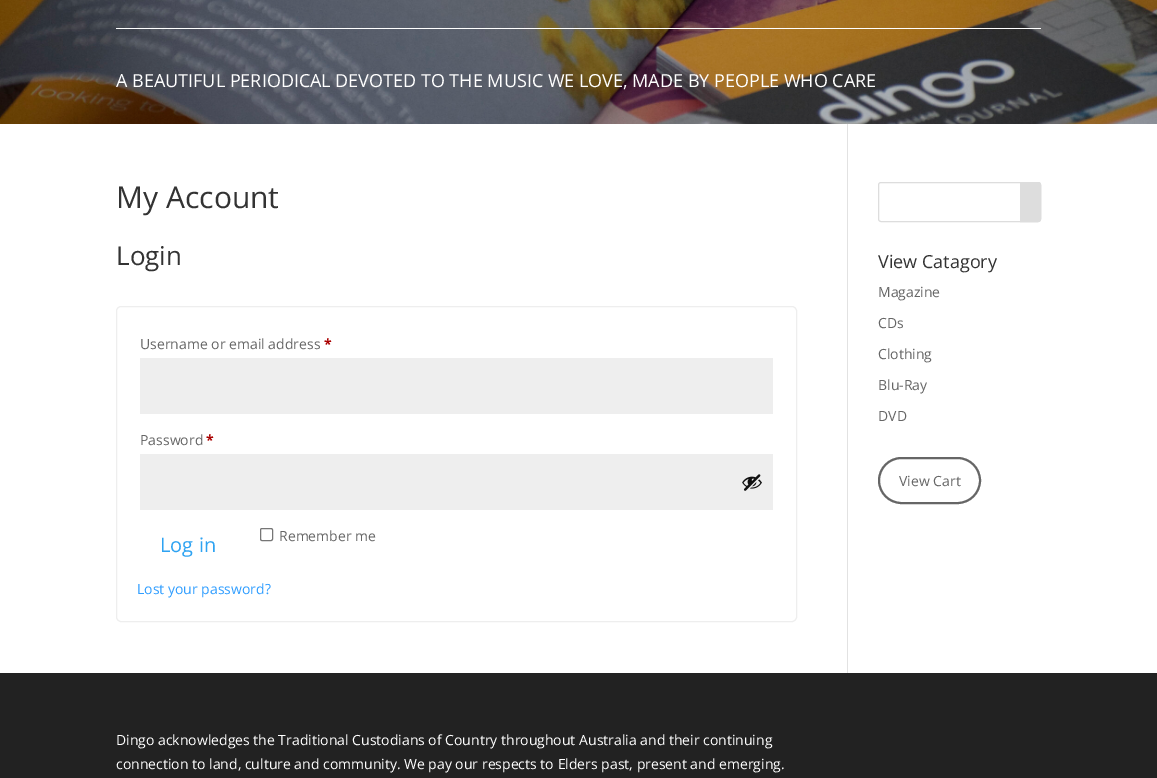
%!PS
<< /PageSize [1157 778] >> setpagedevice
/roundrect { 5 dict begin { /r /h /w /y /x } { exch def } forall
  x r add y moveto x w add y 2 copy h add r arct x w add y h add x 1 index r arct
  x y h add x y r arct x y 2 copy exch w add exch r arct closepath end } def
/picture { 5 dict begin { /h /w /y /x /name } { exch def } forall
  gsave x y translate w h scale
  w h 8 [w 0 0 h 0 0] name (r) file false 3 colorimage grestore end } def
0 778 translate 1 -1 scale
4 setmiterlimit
1 setgray
0 0 1157 778 rectfill
(img1.rgb) 0 0 1157 124 picture
116 28 925 1 rectfill
/OpenSans-Regular [18 0 0 -18 0 0] selectfont
116 87 moveto (A BEAUTIFUL PERIODICAL DEVOTED TO THE MUSIC WE LOVE, MADE BY PEOPLE WHO CARE) show
0.886 setgray
847 124 1 549 rectfill
/OpenSans-Regular [30 0 0 -30 0 0] selectfont
0.2 setgray
116 208 moveto (My Account) show
/OpenSans-Regular [26 0 0 -26 0 0] selectfont
116 265 moveto (Login) show
0.933 setgray
116.5 306.5 680 315 4.5 roundrect stroke
/OpenSans-Regular [14 0 0 -14 0 0] selectfont
0.4 setgray
140 349 moveto (Username or email address) show
/OpenSans-Bold [14 0 0 -14 0 0] selectfont
0.667 0 0 setrgbcolor
324 349 moveto (*) show
0.933 setgray
140 358 633 56 rectfill
/OpenSans-Regular [14 0 0 -14 0 0] selectfont
0.4 setgray
140 445 moveto (Password) show
/OpenSans-Bold [14 0 0 -14 0 0] selectfont
0.667 0 0 setrgbcolor
206 445 moveto (*) show
0.933 setgray
140 454 633 56 rectfill
(img2.rgb) 742 474 20 17 picture
/OpenSans-Regular [20 0 0 -20 0 0] selectfont
0.18 0.639 0.949 setrgbcolor
160 552 moveto (Log in) show
0.463 setgray
260.5 528.5 12 12 1.5 roundrect stroke
/OpenSans-Regular [14 0 0 -14 0 0] selectfont
0.4 setgray
279 541 moveto (Remember me) show
0.188 0.62 1 setrgbcolor
137 594 moveto (Lost your password?) show
0.867 setgray
878.5 182.5 162 39 2.5 roundrect stroke
newpath 1020.5 182.5 moveto 1038 182.5 lineto 1039.5 182.5 1040.5 183.5 1040.5 185 curveto 1040.5 219 lineto 1040.5 220.5 1039.5 221.5 1038 221.5 curveto 1020.5 221.5 lineto closepath gsave fill grestore
stroke
/OpenSans-Regular [18 0 0 -18 0 0] selectfont
0.2 setgray
878 268 moveto (View Catagory) show
/OpenSans-Regular [14 0 0 -14 0 0] selectfont
0.4 setgray
878 297 moveto (Magazine) show
878 328 moveto (CDs) show
878 359 moveto (Clothing) show
878 390 moveto (Blu-Ray) show
878 421 moveto (DVD) show
2 setlinewidth
879 458 101 45 22.5 roundrect stroke
899 486 moveto (View Cart) show
0.133 setgray
0 673 1157 105 rectfill
1 setgray
116 745 moveto (Dingo acknowledges the Traditional Custodians of Country throughout Australia and their continuing) show
116 769 moveto (connection to land, culture and community. We pay our respects to Elders past, present and emerging.) show
showpage
